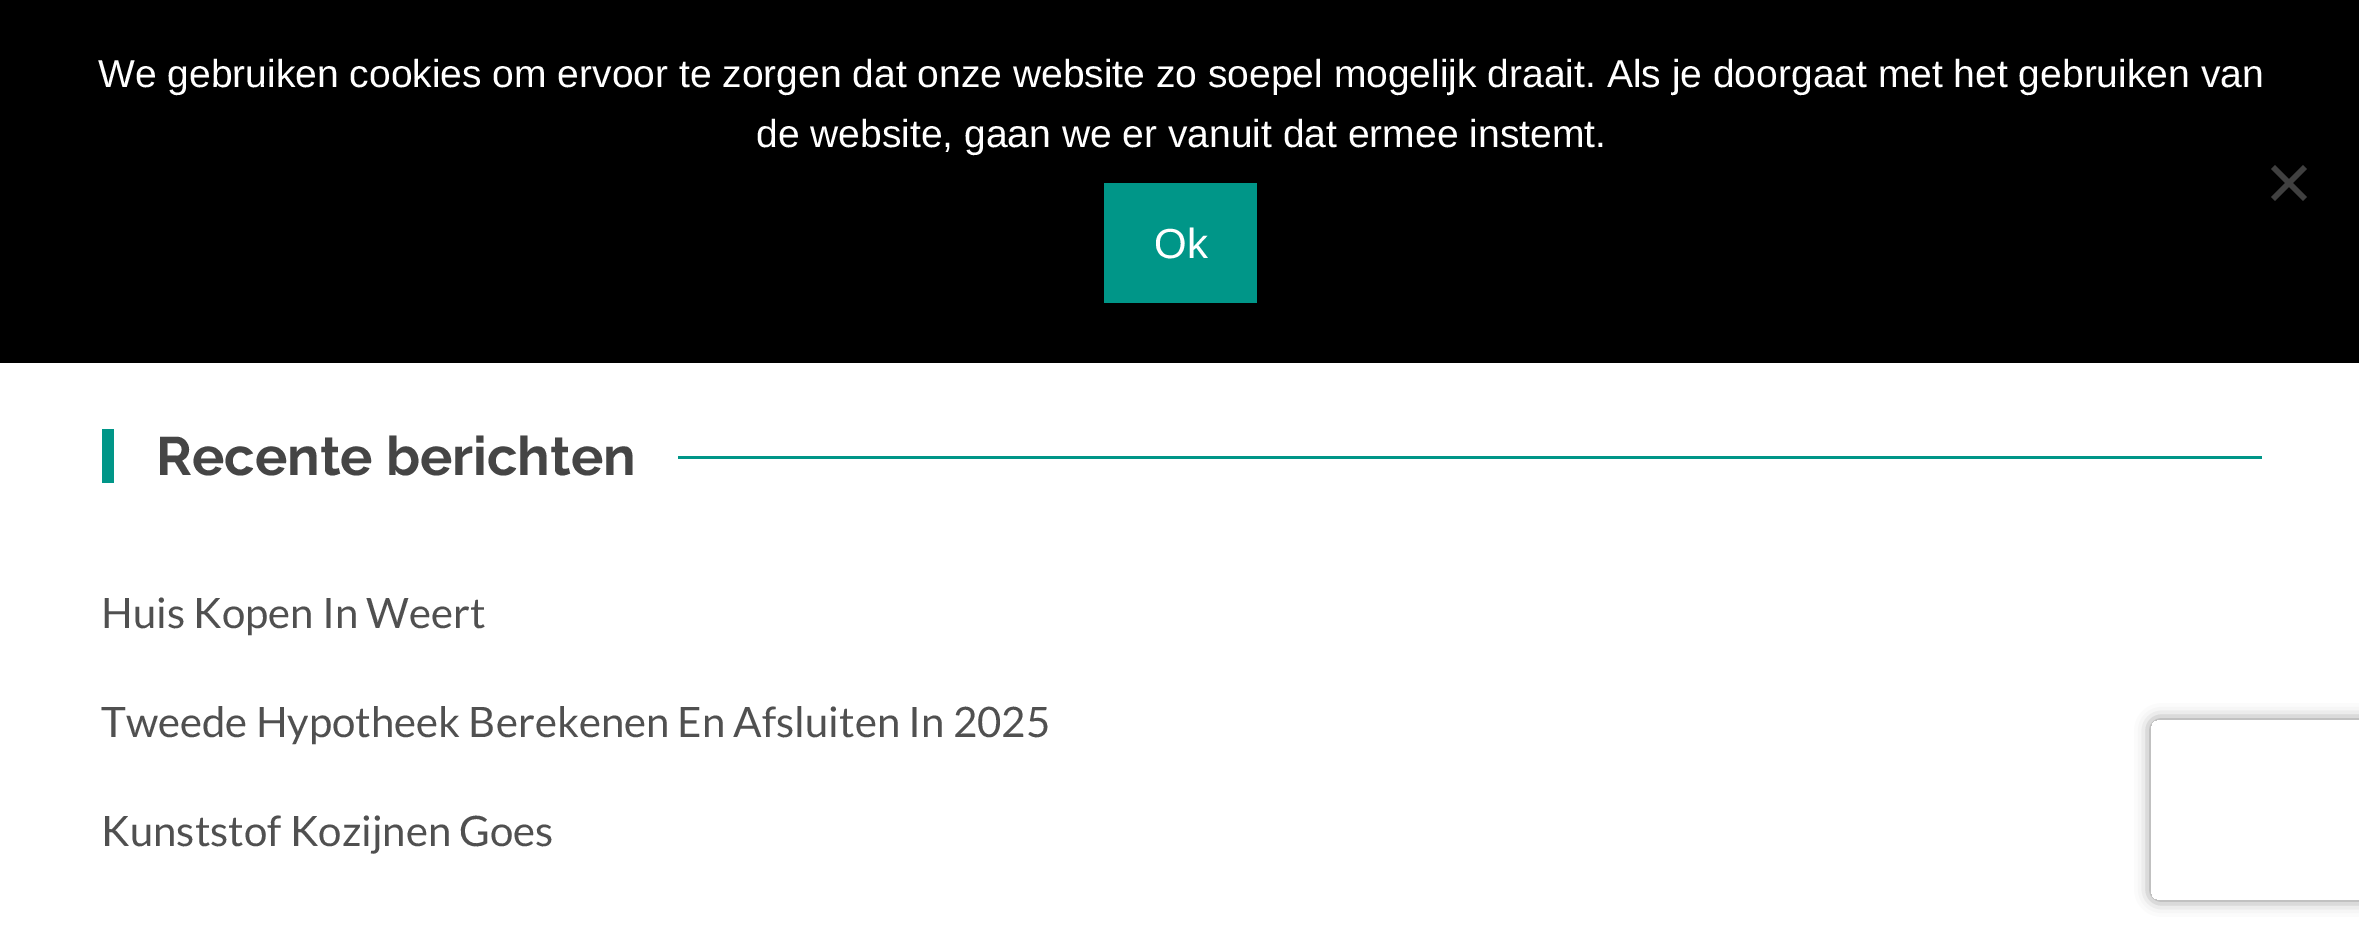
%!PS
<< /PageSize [2359 941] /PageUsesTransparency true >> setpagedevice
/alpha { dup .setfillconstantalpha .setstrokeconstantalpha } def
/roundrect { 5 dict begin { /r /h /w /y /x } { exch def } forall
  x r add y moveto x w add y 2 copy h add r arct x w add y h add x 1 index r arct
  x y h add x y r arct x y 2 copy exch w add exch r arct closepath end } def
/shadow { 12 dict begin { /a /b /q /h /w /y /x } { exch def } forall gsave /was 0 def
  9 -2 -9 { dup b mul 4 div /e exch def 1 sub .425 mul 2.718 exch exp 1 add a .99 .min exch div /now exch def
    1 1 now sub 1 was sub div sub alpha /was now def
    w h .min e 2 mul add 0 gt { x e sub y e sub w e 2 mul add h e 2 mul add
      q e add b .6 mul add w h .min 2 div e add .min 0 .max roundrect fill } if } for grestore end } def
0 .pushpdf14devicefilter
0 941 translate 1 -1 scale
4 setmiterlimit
1 setgray
0 0 2359 941 rectfill
0 setgray
0 0 2359 363 rectfill
/LiberationSans-Regular [39 0 0 -39 0 0] selectfont
1 setgray
98 87 moveto (We gebruiken cookies om ervoor te zorgen dat onze website zo soepel mogelijk draait. Als je doorgaat met het gebruiken van) show
756 147 moveto (de website, gaan we er vanuit dat ermee instemt.) show
0.251 setgray
newpath 2303 165 moveto 2307 169 lineto 2275 201 lineto 2271 197 lineto closepath fill
newpath 2271 169 moveto 2275 165 lineto 2307 197 lineto 2303 201 lineto closepath fill
0 0.588 0.533 setrgbcolor
1104 183 153 120 rectfill
/LiberationSans-Regular [42 0 0 -42 0 0] selectfont
1 setgray
1154 258 moveto (Ok) show
0 0.588 0.533 setrgbcolor
102 429 12 54 rectfill
/Raleway-Bold [54 0 0 -54 0 0] selectfont
0.271 setgray
156 475 moveto (Recente berichten) show
0 0.588 0.533 setrgbcolor
678 456 1584 3 rectfill
/Lato-Regular [42 0 0 -42 0 0] selectfont
0.314 setgray
101 628 moveto (Huis Kopen In Weert) show
101 737 moveto (Tweede Hypotheek Berekenen En Afsluiten In 2025) show
101 846 moveto (Kunststof Kozijnen Goes) show
gsave
newpath 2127 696 moveto 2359 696 lineto 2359 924 lineto 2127 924 lineto closepath 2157 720 moveto 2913 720 lineto 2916.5 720 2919 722.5 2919 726 curveto 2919 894 lineto 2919 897.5 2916.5 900 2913 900 curveto 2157 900 lineto 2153.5 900 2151 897.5 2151 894 curveto 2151 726 lineto 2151 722.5 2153.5 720 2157 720 curveto closepath eoclip newpath
0.502 setgray
2151 720 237 180 6 7.5 1 shadow
grestore
.poppdf14devicefilter showpage
